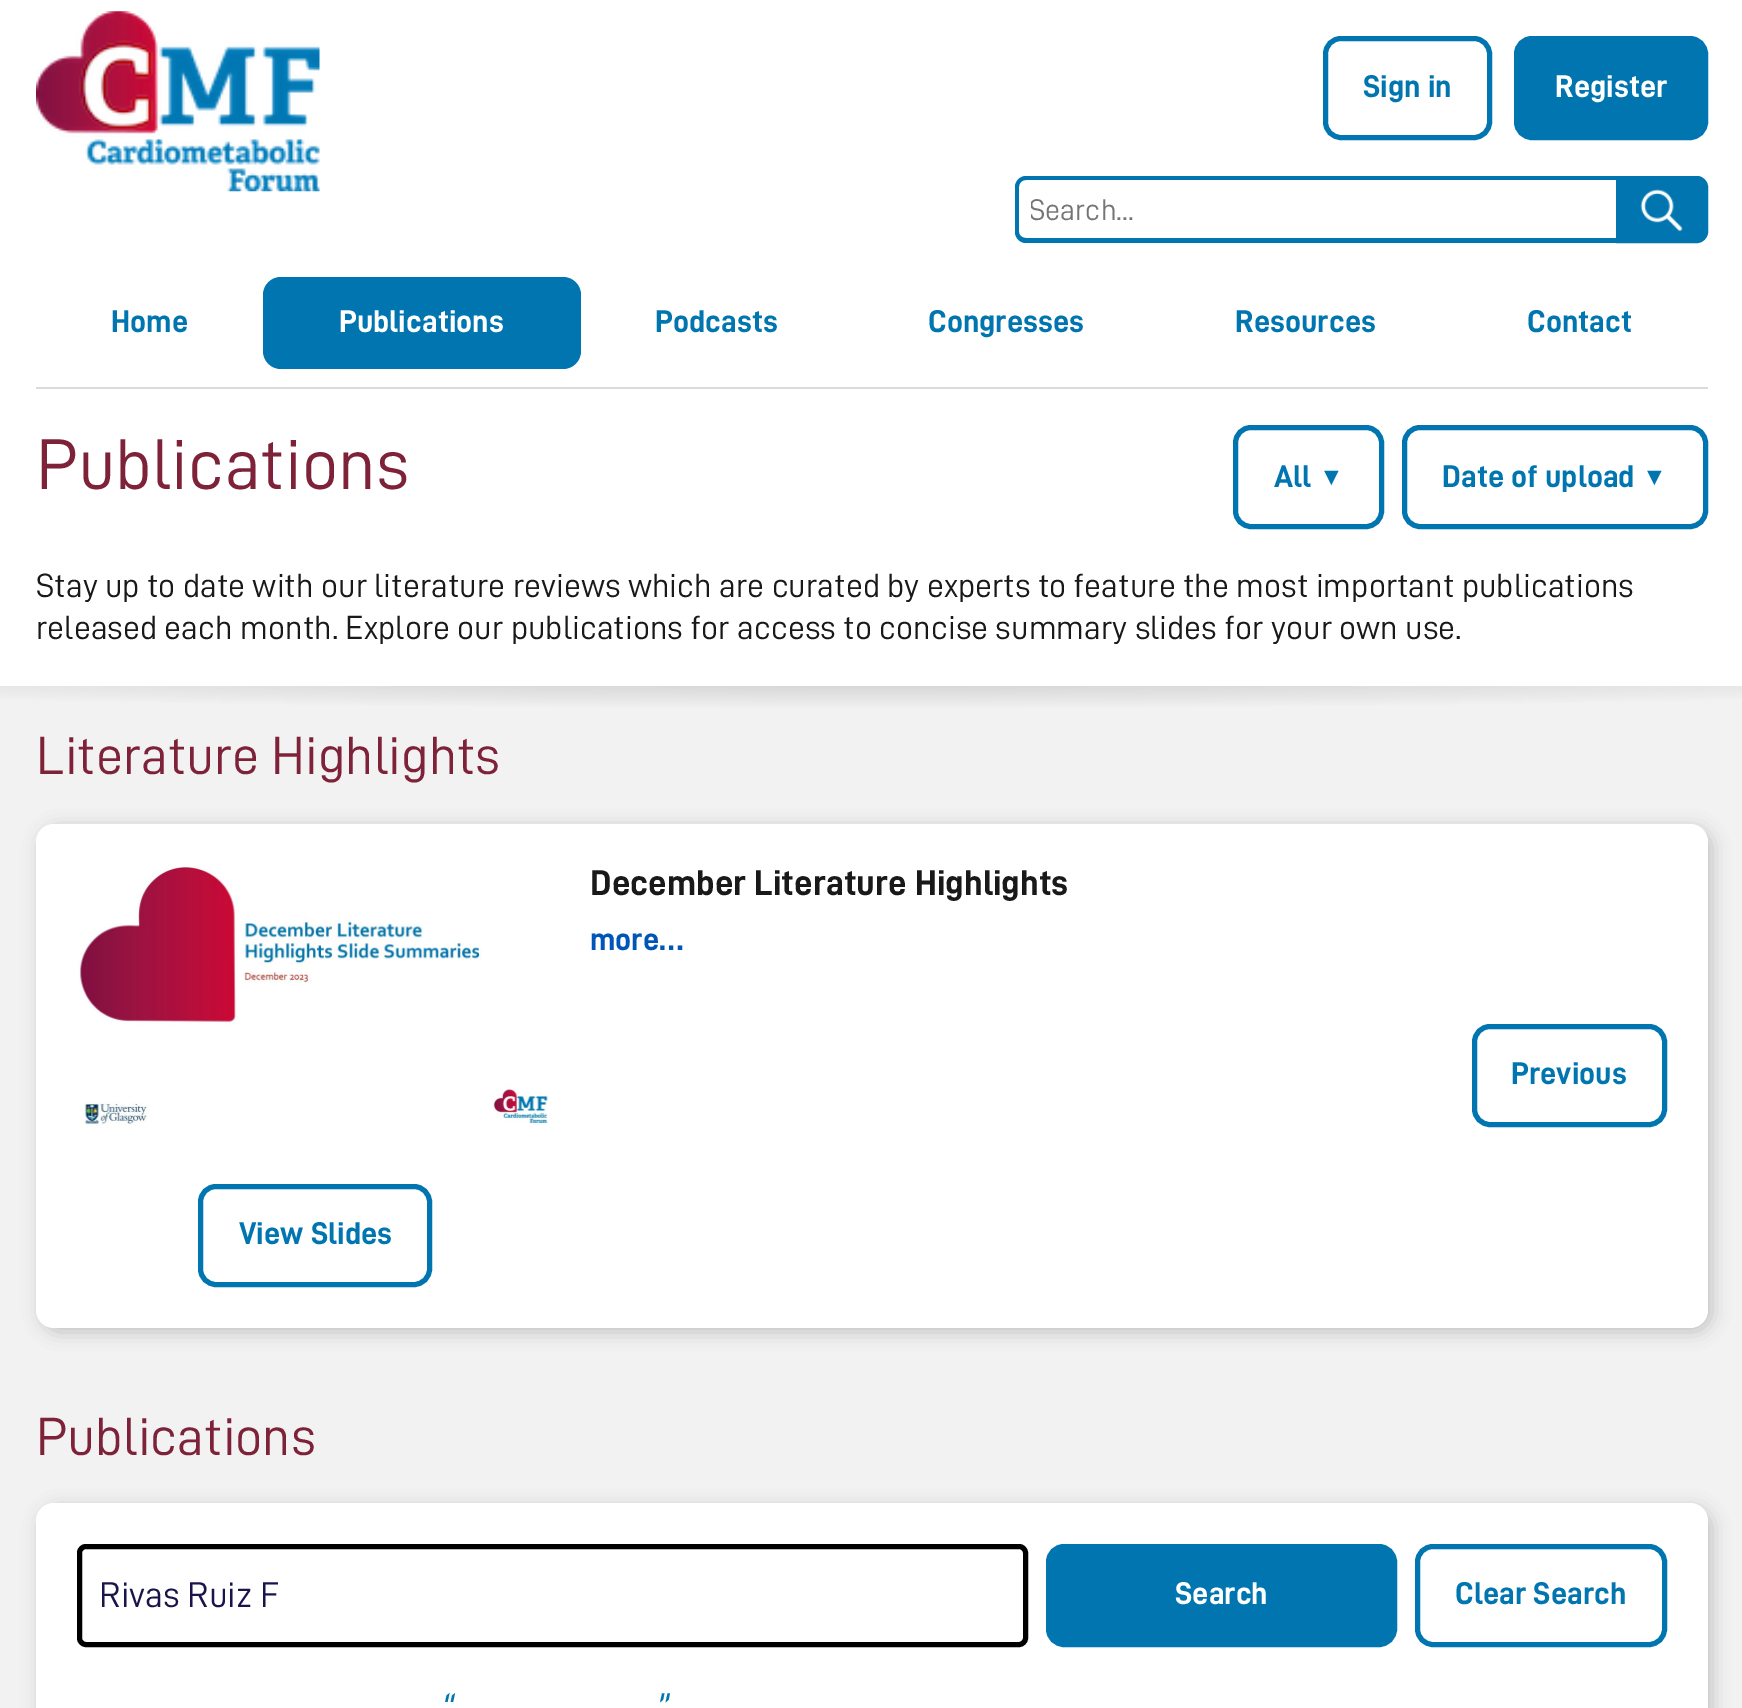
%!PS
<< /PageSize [1742 1708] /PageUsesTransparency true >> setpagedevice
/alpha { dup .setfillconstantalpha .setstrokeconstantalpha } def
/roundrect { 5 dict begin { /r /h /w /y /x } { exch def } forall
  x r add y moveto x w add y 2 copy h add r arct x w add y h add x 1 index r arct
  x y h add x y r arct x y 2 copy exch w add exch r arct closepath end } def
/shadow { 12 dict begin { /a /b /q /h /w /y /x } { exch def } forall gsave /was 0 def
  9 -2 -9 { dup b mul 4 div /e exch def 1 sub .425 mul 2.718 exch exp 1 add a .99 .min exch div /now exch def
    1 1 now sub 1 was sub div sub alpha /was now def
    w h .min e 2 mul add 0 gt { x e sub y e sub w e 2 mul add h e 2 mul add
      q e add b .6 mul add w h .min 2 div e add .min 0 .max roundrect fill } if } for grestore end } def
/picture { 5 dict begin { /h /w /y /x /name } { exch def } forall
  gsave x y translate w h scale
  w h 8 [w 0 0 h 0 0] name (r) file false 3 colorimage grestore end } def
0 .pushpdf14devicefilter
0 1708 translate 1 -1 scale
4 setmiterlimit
1 setgray
0 0 1742 1708 rectfill
0.863 0.855 0.859 setrgbcolor
36 387 1672 2 rectfill
(img1.rgb) 36 11 284 181 picture
0 0.459 0.69 setrgbcolor
5 setlinewidth
1325.5 38.5 164 99 15.5 roundrect stroke
/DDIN-Bold [31.5 0 0 -31.5 0 0] selectfont
1363 97 moveto (Sign in) show
1516.5 38.5 189 99 15.5 roundrect gsave fill grestore
stroke
1 setgray
1555 97 moveto (Register) show
0 0.459 0.69 setrgbcolor
newpath 1026 176 moveto 1616 176 lineto 1616 243 lineto 1026 243 lineto 1020 243 1015 238 1015 232 curveto 1015 187 lineto 1015 181 1020 176 1026 176 curveto closepath 1026 180 moveto 1616 180 lineto 1616 238 lineto 1026 238 lineto 1022 238 1019 235 1019 232 curveto 1019 187 lineto 1019 183 1022 180 1026 180 curveto closepath eofill
gsave
1031 194 573 31 rectclip
/DDIN-Regular [30 0 0 -30 0 0] selectfont
0.459 setgray
1029 220 moveto (Search...) show
grestore
newpath 1618.5 178.5 moveto 1697 178.5 lineto 1701.5 178.5 1705.5 182.5 1705.5 187 curveto 1705.5 232 lineto 1705.5 236.5 1701.5 240.5 1697 240.5 curveto 1618.5 240.5 lineto closepath gsave fill grestore
stroke
(img2.rgb) 1640 189 43 43 picture
111 332 moveto (Home) show
263 277 318 92 18 roundrect fill
1 setgray
339 332 moveto (Publications) show
0 0.459 0.69 setrgbcolor
655 332 moveto (Podcasts) show
928 332 moveto (Congresses) show
1235 332 moveto (Resources) show
1527 332 moveto (Contact) show
/DDIN-Regular [72 0 0 -72 0 0] selectfont
0.49 0.133 0.224 setrgbcolor
36 489 moveto (Publications) show
0 0.459 0.69 setrgbcolor
1235.5 427.5 146 99 15.5 roundrect stroke
/DDIN-Bold [31.5 0 0 -31.5 0 0] selectfont
1274 487 moveto (All) show
/LiberationSans-Regular [25 0 0 -25 0 0] selectfont
1319 485 moveto (▼) show
1404.5 427.5 301 99 15.5 roundrect stroke
/DDIN-Bold [31.5 0 0 -31.5 0 0] selectfont
1442 487 moveto (Date of upload) show
/LiberationSans-Regular [25 0 0 -25 0 0] selectfont
1642 485 moveto (▼) show
/DDIN-Regular [33.75 0 0 -33.75 0 0] selectfont
0.102 0.098 0.098 setrgbcolor
36 597 moveto (Stay up to date with our literature reviews which are curated by experts to feature the most important publications) show
36 639 moveto (released each month. Explore our publications for access to concise summary slides for your own use.) show
gsave newpath 0 686 moveto 1742 686 lineto 1742 1708 lineto 0 1708 lineto closepath clip newpath 872 675 translate 1308 34 scale
<< /ShadingType 3 /ColorSpace /DeviceRGB /Coords [0 0 0 0 0 1] /Extend [true true] /Function << /FunctionType 2 /Domain [0 1] /C0 [0.8 0.8 0.8] /C1 [0.949 0.949 0.949] /N 1 >> >> shfill grestore
/DDIN-Regular [54 0 0 -54 0 0] selectfont
0.49 0.133 0.224 setrgbcolor
36 774 moveto (Literature Highlights) show
0 setgray
41 828 1671 504 18 9 0.2 shadow
1 setgray
36 824 1672 504 18 roundrect fill
/DDIN-Bold [36 0 0 -36 0 0] selectfont
0.102 0.098 0.098 setrgbcolor
590 895 moveto (December Literature Highlights) show
/DDIN-Bold [31.5 0 0 -31.5 0 0] selectfont
0 0.333 0.718 setrgbcolor
590 950 moveto (more…) show
0 0.459 0.69 setrgbcolor
1474.5 1026.5 190 98 15.5 roundrect stroke
1511 1084 moveto (Previous) show
(img3.rgb) 78 866 470 260 picture
200.5 1186.5 229 98 15.5 roundrect stroke
239 1244 moveto (View Slides) show
/DDIN-Regular [54 0 0 -54 0 0] selectfont
0.49 0.133 0.224 setrgbcolor
36 1455 moveto (Publications) show
0 setgray
41 1508 1671 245 18 9 0.2 shadow
1 setgray
36 1503 1672 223 18 roundrect fill
0 setgray
79.5 1546.5 946 98 6.5 roundrect stroke
/DDIN-Regular [36 0 0 -36 0 0] selectfont
0.098 0.078 0.29 setrgbcolor
99 1607 moveto (Rivas Ruiz F) show
0 0.459 0.69 setrgbcolor
1048.5 1546.5 346 98 15.5 roundrect gsave fill grestore
stroke
/DDIN-Bold [31.5 0 0 -31.5 0 0] selectfont
1 setgray
1175 1604 moveto (Search) show
0 0.459 0.69 setrgbcolor
1417.5 1546.5 247 98 15.5 roundrect stroke
1455 1604 moveto (Clear Search) show
/DDIN-Italic [40 0 0 -40 0 0] selectfont
441 1721 moveto (“) show
656 1721 moveto (”) show
.poppdf14devicefilter showpage
